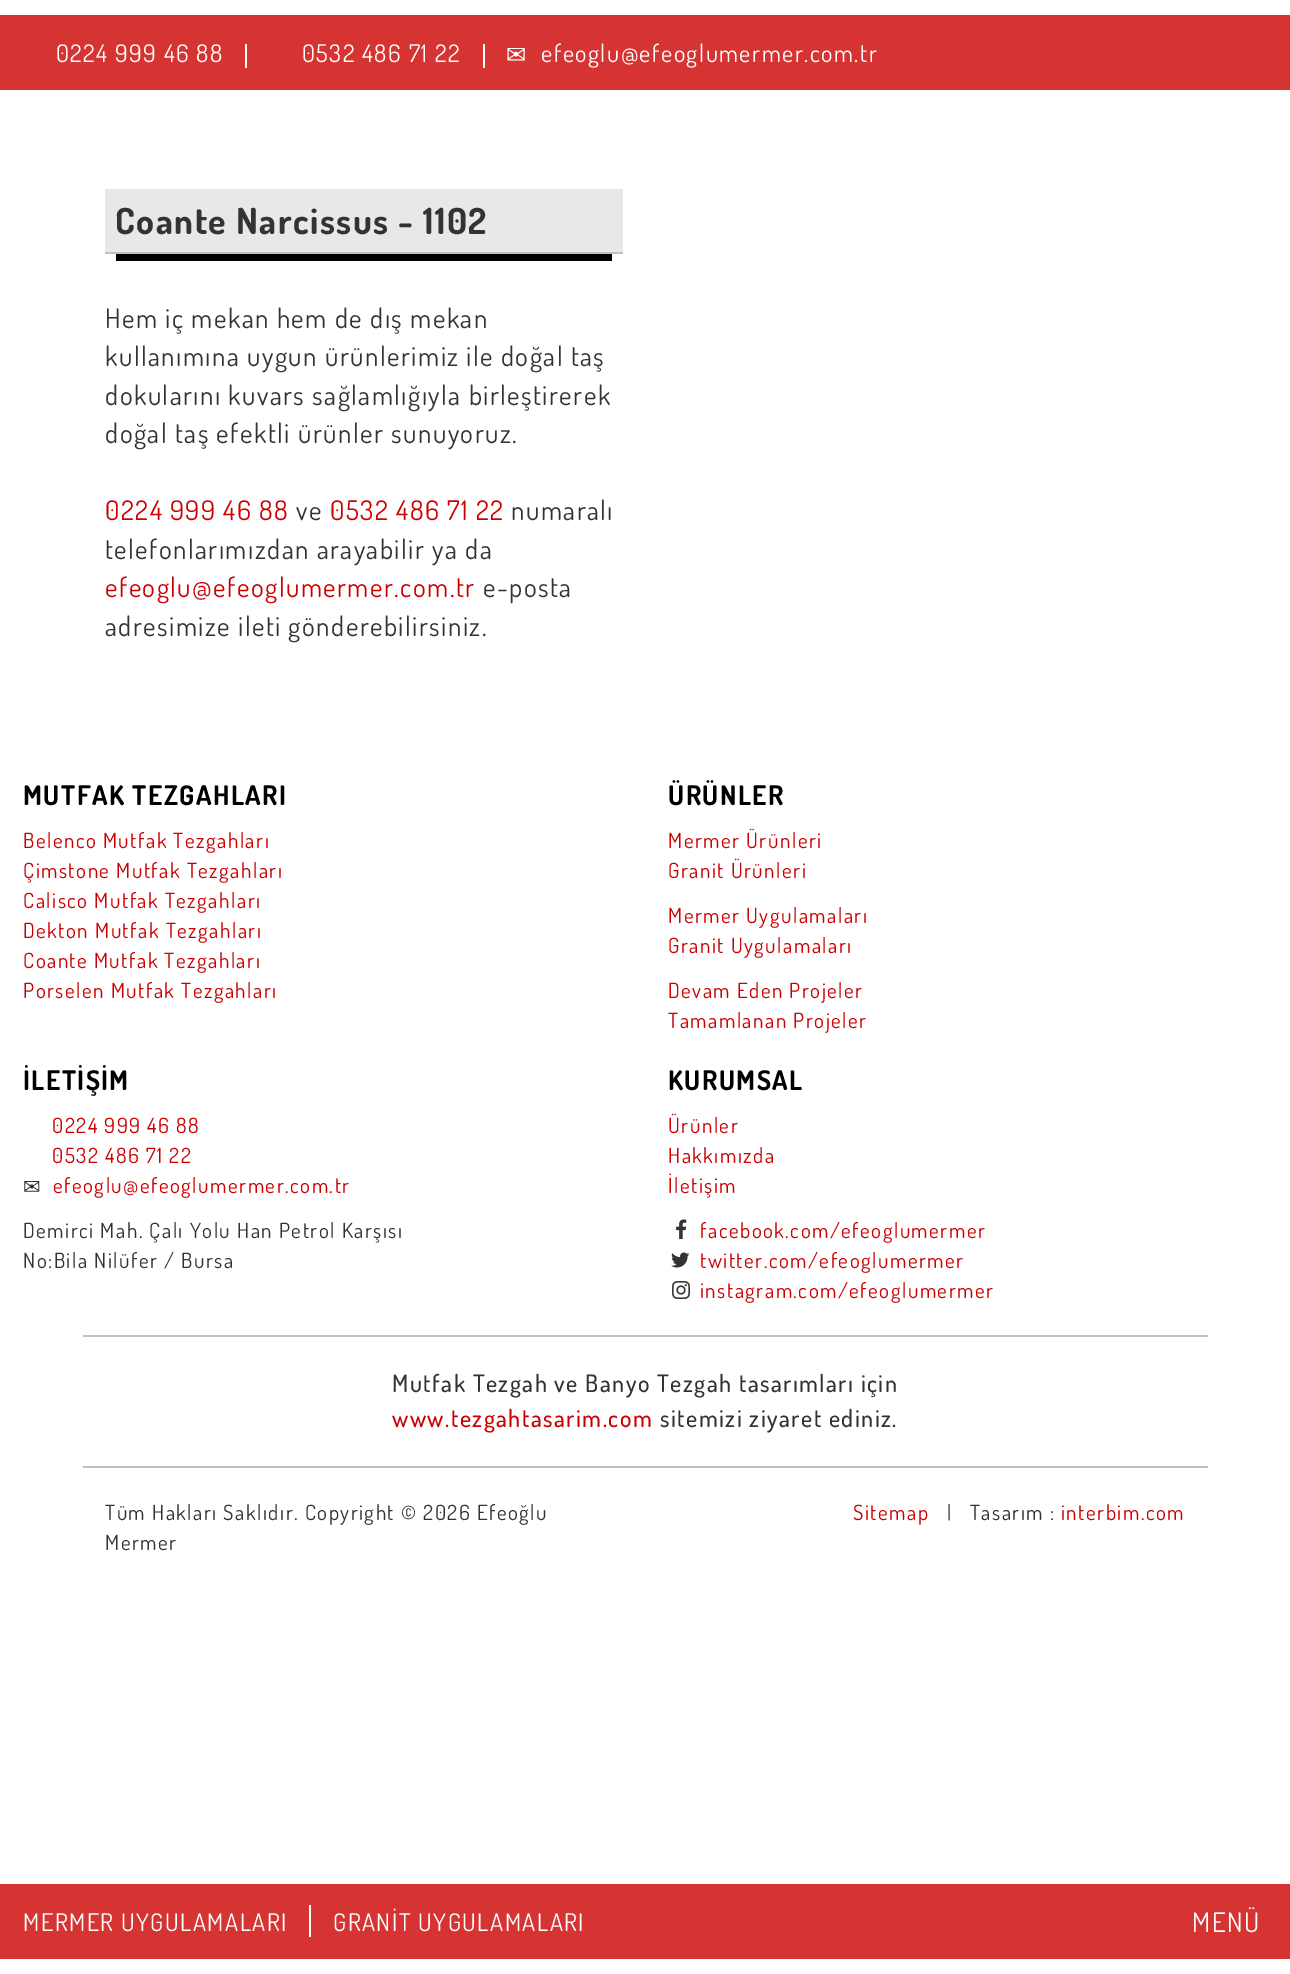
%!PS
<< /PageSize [1290 1974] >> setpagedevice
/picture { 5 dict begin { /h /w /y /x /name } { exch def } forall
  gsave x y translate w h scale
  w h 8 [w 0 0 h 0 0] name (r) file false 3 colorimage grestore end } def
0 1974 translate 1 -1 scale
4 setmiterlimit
1 setgray
0 0 1290 1974 rectfill
0.839 0.2 0.2 setrgbcolor
0 15 1290 75 rectfill
/Dosis-Regular [24.25 0 0 -24.25 0 0] selectfont
1 setgray
56 62 moveto 1.5 0 (0224 999 46 88) ashow
302 62 moveto 1.5 0 (0532 486 71 22) ashow
245 44 2 24 rectfill
483 44 2 24 rectfill
/DejaVuSans-Regular [24.25 0 0 -24.25 0 0] selectfont
506 63 moveto 1.5 0 (✉) ashow
/Dosis-Regular [24.25 0 0 -24.25 0 0] selectfont
541 62 moveto 1.5 0 (efeoglu@efeoglumermer.com.tr) ashow
0.91 setgray
105 189 518 63 rectfill
/Dosis-Bold [36 0 0 -36 0 0] selectfont
0.2 setgray
115 234 moveto 1.5 0 (Coante Narcissus - 1102) ashow
0.753 setgray
105 252 518 2 rectfill
0 setgray
116 254 496 7 rectfill
/Dosis-Regular [27 0 0 -27 0 0] selectfont
0.2 setgray
105 328 moveto 1.5 0 (Hem iç mekan hem de dış mekan) ashow
105 366 moveto 1.5 0 (kullanımına uygun ürünlerimiz ile doğal taş) ashow
105 405 moveto 1.5 0 (dokularını kuvars sağlamlığıyla birleştirerek) ashow
105 443 moveto 1.5 0 (doğal taş efektli ürünler sunuyoruz.) ashow
0.8 0 0 setrgbcolor
105 520 moveto 1.5 0 (0224 999 46 88) ashow
0.2 setgray
296 520 moveto 1.5 0 (ve) ashow
0.8 0 0 setrgbcolor
330 520 moveto 1.5 0 (0532 486 71 22) ashow
0.2 setgray
511 520 moveto 1.5 0 (numaralı) ashow
105 559 moveto 1.5 0 (telefonlarımızdan arayabilir ya da) ashow
0.8 0 0 setrgbcolor
105 597 moveto 1.5 0 (efeoglu@efeoglumermer.com.tr) ashow
0.2 setgray
483 597 moveto 1.5 0 (e-posta) ashow
105 636 moveto 1.5 0 (adresimize ileti gönderebilirsiniz.) ashow
/Dosis-Bold [27 0 0 -27 0 0] selectfont
0 setgray
23 805 moveto 1.5 0 (MUTFAK TEZGAHLARI) ashow
/Dosis-Regular [21 0 0 -21 0 0] selectfont
0.8 0 0 setrgbcolor
23 848 moveto 1.5 0 (Belenco Mutfak Tezgahları) ashow
23 878 moveto 1.5 0 (Çimstone Mutfak Tezgahları) ashow
23 908 moveto 1.5 0 (Calisco Mutfak Tezgahları) ashow
23 938 moveto 1.5 0 (Dekton Mutfak Tezgahları) ashow
23 968 moveto 1.5 0 (Coante Mutfak Tezgahları) ashow
23 998 moveto 1.5 0 (Porselen Mutfak Tezgahları) ashow
/Dosis-Bold [27 0 0 -27 0 0] selectfont
0 setgray
668 805 moveto 1.5 0 (ÜRÜNLER) ashow
/Dosis-Regular [21 0 0 -21 0 0] selectfont
0.8 0 0 setrgbcolor
668 848 moveto 1.5 0 (Mermer Ürünleri) ashow
668 878 moveto 1.5 0 (Granit Ürünleri) ashow
668 923 moveto 1.5 0 (Mermer Uygulamaları) ashow
668 953 moveto 1.5 0 (Granit Uygulamaları) ashow
668 998 moveto 1.5 0 (Devam Eden Projeler) ashow
668 1028 moveto 1.5 0 (Tamamlanan Projeler) ashow
/Dosis-Bold [27 0 0 -27 0 0] selectfont
0 setgray
23 1090 moveto 1.5 0 (İLETİŞİM) ashow
/Dosis-Regular [21 0 0 -21 0 0] selectfont
0.8 0 0 setrgbcolor
52 1133 moveto 1.5 0 (0224 999 46 88) ashow
52 1163 moveto 1.5 0 (0532 486 71 22) ashow
/DejaVuSans-Regular [21 0 0 -21 0 0] selectfont
0.2 setgray
23 1194 moveto 1.5 0 (✉) ashow
/Dosis-Regular [21 0 0 -21 0 0] selectfont
0.8 0 0 setrgbcolor
53 1193 moveto 1.5 0 (efeoglu@efeoglumermer.com.tr) ashow
0.2 setgray
23 1238 moveto 1.5 0 (Demirci Mah. Çalı Yolu Han Petrol Karşısı) ashow
23 1268 moveto 1.5 0 (No:Bila Nilüfer / Bursa) ashow
/Dosis-Bold [27 0 0 -27 0 0] selectfont
0 setgray
668 1090 moveto 1.5 0 (KURUMSAL) ashow
/Dosis-Regular [21 0 0 -21 0 0] selectfont
0.8 0 0 setrgbcolor
668 1133 moveto 1.5 0 (Ürünler) ashow
668 1163 moveto 1.5 0 (Hakkımızda) ashow
668 1193 moveto 1.5 0 (İletişim) ashow
(img1.rgb) 676 1219 11 20 picture
700 1238 moveto 1.5 0 (facebook.com/efeoglumermer) ashow
(img2.rgb) 671 1252 19 16 picture
700 1268 moveto 1.5 0 (twitter.com/efeoglumermer) ashow
(img3.rgb) 672 1281 18 18 picture
700 1298 moveto 1.5 0 (instagram.com/efeoglumermer) ashow
0.753 setgray
83 1335 1125 2 rectfill
/Dosis-Medium [24 0 0 -24 0 0] selectfont
0.2 setgray
392 1392 moveto 1.5 0 (Mutfak Tezgah ve Banyo Tezgah tasarımları için) ashow
0.8 0 0 setrgbcolor
392 1427 moveto 1.5 0 (www.tezgahtasarim.com) ashow
0.2 setgray
660 1427 moveto 1.5 0 (sitemizi ziyaret ediniz.) ashow
0.753 setgray
83 1466 1125 2 rectfill
/Dosis-Regular [21 0 0 -21 0 0] selectfont
0.2 setgray
105 1520 moveto 1.5 0 (Tüm Hakları Saklıdır. Copyright © 2026 Efeoğlu) ashow
105 1550 moveto 1.5 0 (Mermer) ashow
0.8 0 0 setrgbcolor
853 1520 moveto 1.5 0 (Sitemap) ashow
0.2 setgray
947 1520 moveto 1.5 0 (|   Tasarım :) ashow
0.8 0 0 setrgbcolor
1061 1520 moveto 1.5 0 (interbim.com) ashow
0.839 0.2 0.2 setrgbcolor
0 1884 1290 75 rectfill
/Dosis-Regular [24.25 0 0 -24.25 0 0] selectfont
1 setgray
23 1931 moveto 1.5 0 (MERMER UYGULAMALARI) ashow
333 1931 moveto 1.5 0 (GRANİT UYGULAMALARI) ashow
309 1905 2 32 rectfill
/Dosis-Regular [27 0 0 -27 0 0] selectfont
1192 1932 moveto 1.5 0 (MENÜ) ashow
showpage
